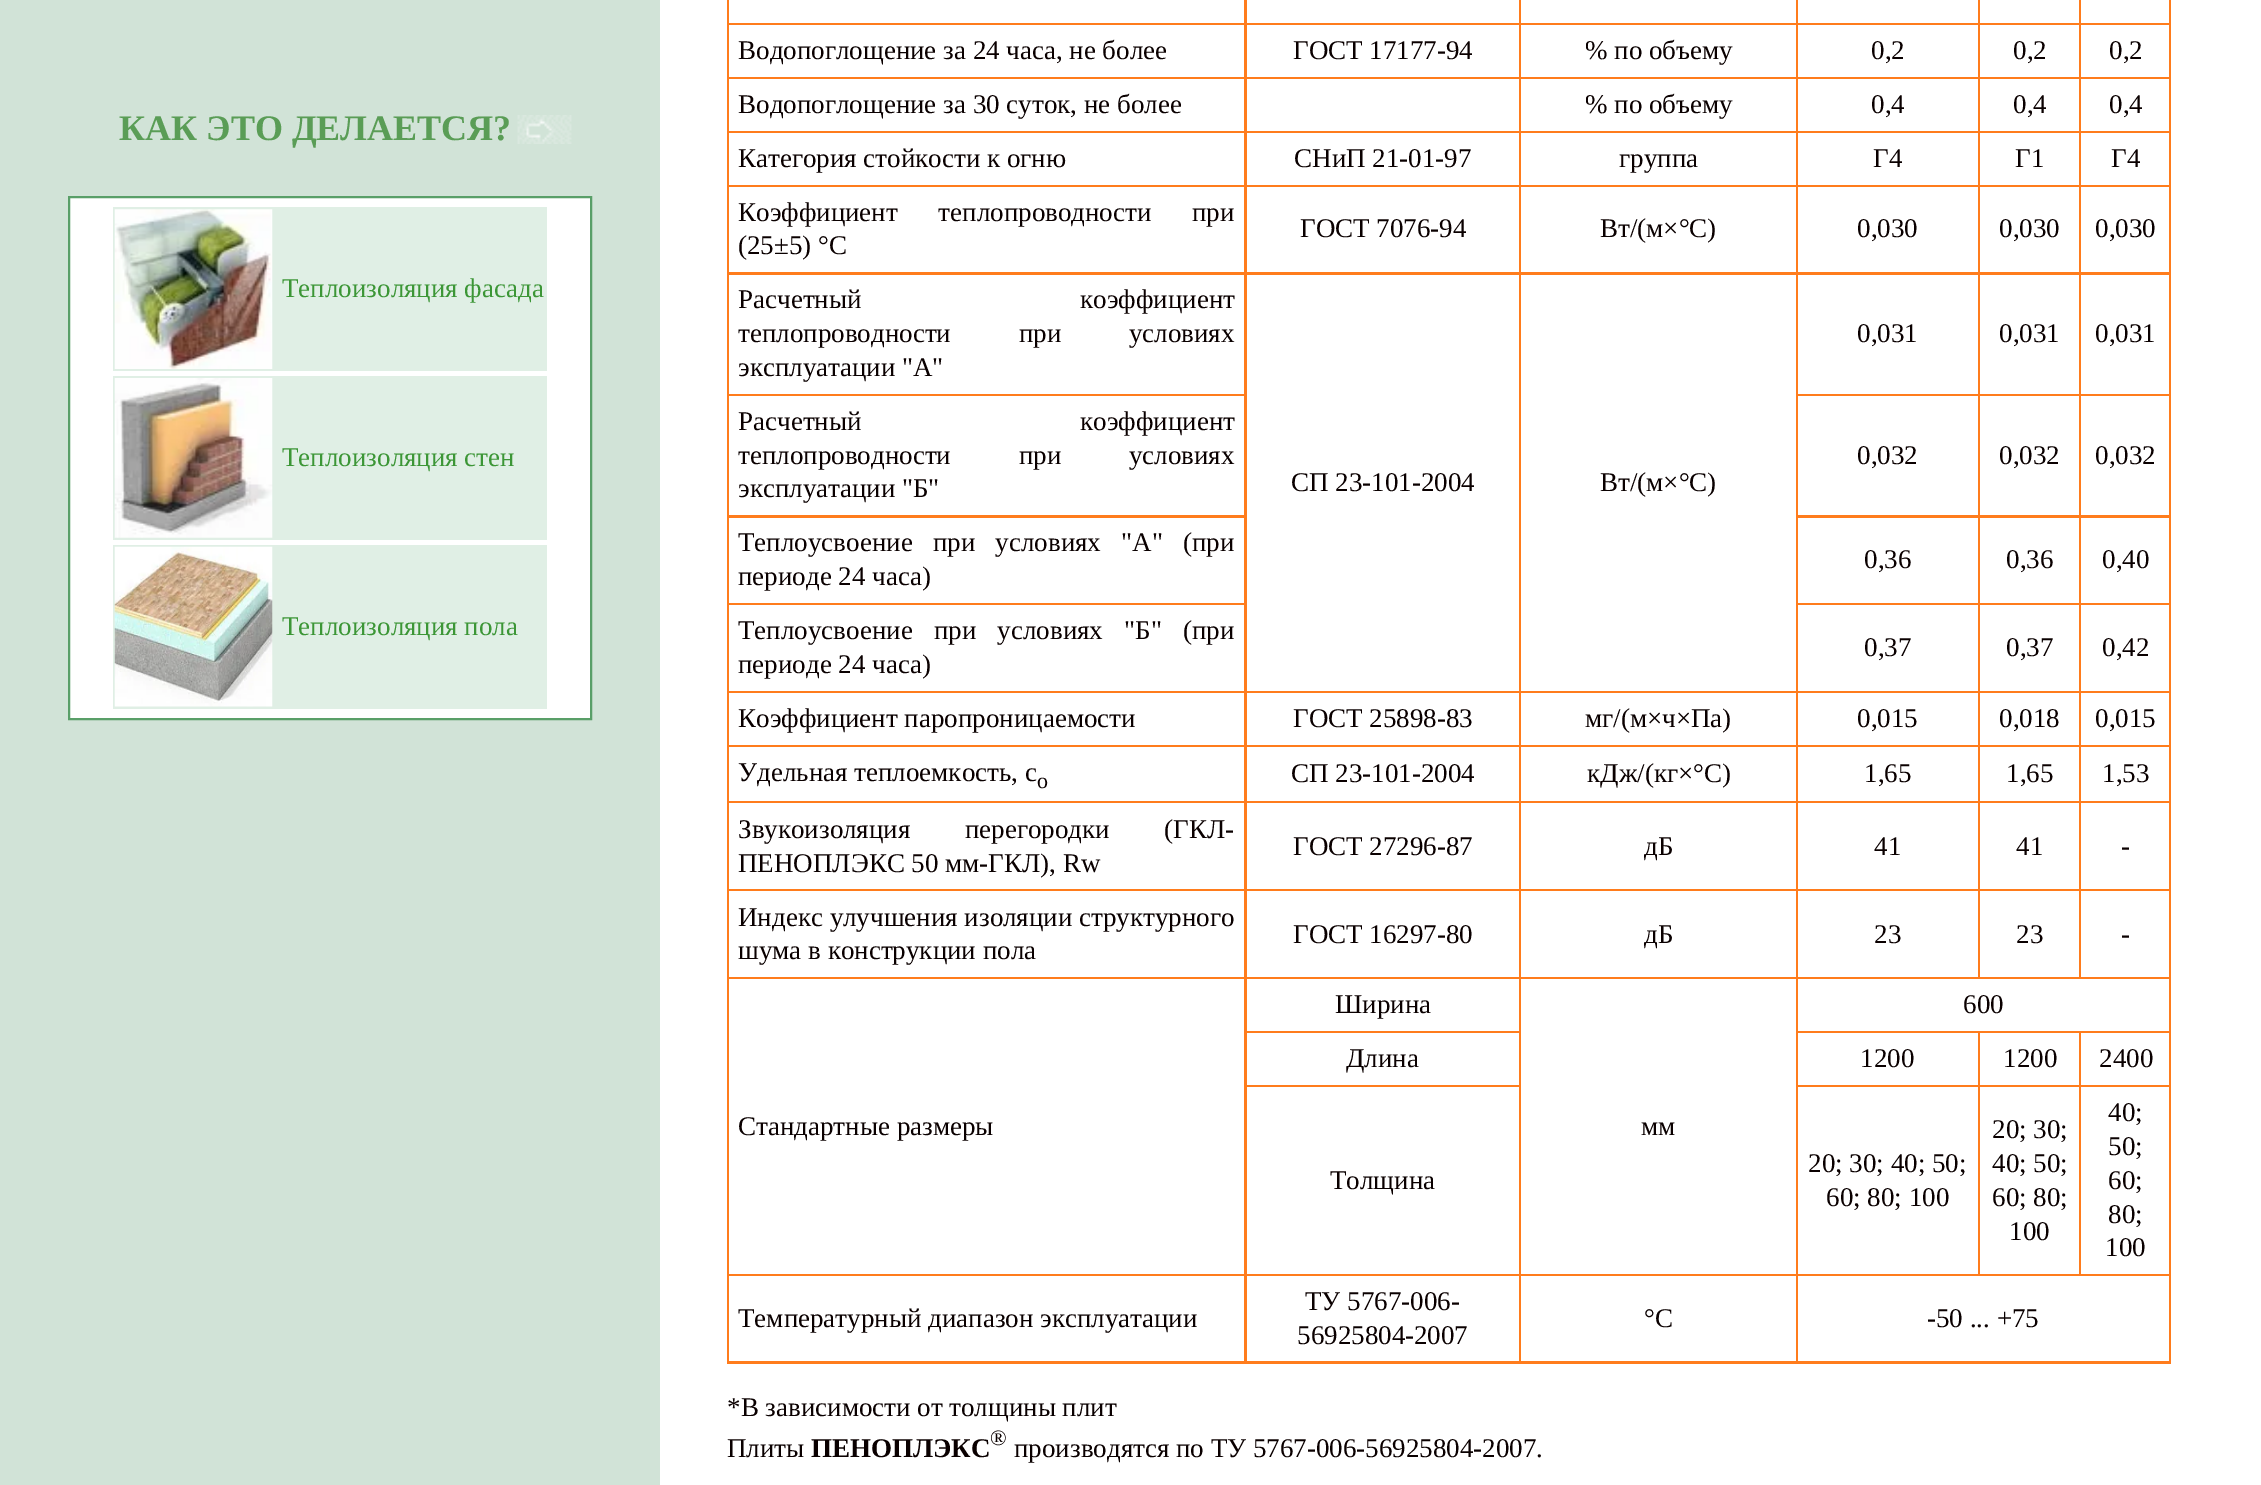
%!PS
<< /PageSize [2261 1485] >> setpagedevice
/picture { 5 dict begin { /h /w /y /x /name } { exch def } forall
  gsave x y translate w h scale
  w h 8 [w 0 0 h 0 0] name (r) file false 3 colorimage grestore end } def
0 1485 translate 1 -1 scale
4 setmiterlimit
1 setgray
0 0 2261 1485 rectfill
0.82 0.89 0.843 setrgbcolor
0 0 660 1485 rectfill
/LiberationSerif-Bold [36 0 0 -36 0 0] selectfont
0.353 0.616 0.337 setrgbcolor
119 140 moveto (КАК ЭТО ДЕЛАЕТСЯ?) show
(img1.rgb) 517 115 55 29 picture
1 setgray
newpath 69 197 moveto 591 197 lineto 591 719 lineto 69 719 lineto closepath gsave fill grestore
0.349 0.624 0.408 setrgbcolor
2 setlinewidth
stroke
0.878 0.937 0.898 setrgbcolor
113 207 434 164 rectfill
(img2.rgb) 114 209 159 160 picture
/LiberationSerif-Regular [27 0 0 -27 0 0] selectfont
0.235 0.588 0.212 setrgbcolor
282 297 moveto (Теплоизоляция фасада) show
0.878 0.937 0.898 setrgbcolor
113 376 434 164 rectfill
(img3.rgb) 114 378 159 160 picture
0.235 0.588 0.212 setrgbcolor
282 466 moveto (Теплоизоляция стен) show
0.878 0.937 0.898 setrgbcolor
113 545 434 164 rectfill
(img4.rgb) 114 546 159 161 picture
0.235 0.588 0.212 setrgbcolor
282 635 moveto (Теплоизоляция пола) show
1 0.486 0.11 setrgbcolor
727 0 1444 1364 rectfill
1 setgray
729 0 515 23 rectfill
1247 0 272 23 rectfill
1521 0 275 23 rectfill
1798 0 180 23 rectfill
1980 0 99 23 rectfill
2081 0 88 23 rectfill
729 25 515 52 rectfill
0.039 0 0 setrgbcolor
738 59 moveto (Водопоглощение за 24 часа, не более) show
1 setgray
1247 25 272 52 rectfill
0.039 0 0 setrgbcolor
1293 59 moveto (ГОСТ 17177-94) show
1 setgray
1521 25 275 52 rectfill
0.039 0 0 setrgbcolor
1585 59 moveto (% по объему) show
1 setgray
1798 25 180 52 rectfill
0.039 0 0 setrgbcolor
1871 59 moveto (0,2) show
1 setgray
1980 25 99 52 rectfill
0.039 0 0 setrgbcolor
2013 59 moveto (0,2) show
1 setgray
2081 25 88 52 rectfill
0.039 0 0 setrgbcolor
2109 59 moveto (0,2) show
1 setgray
729 79 515 52 rectfill
0.039 0 0 setrgbcolor
738 113 moveto (Водопоглощение за 30 суток, не более) show
1 setgray
1247 79 272 52 rectfill
1521 79 275 52 rectfill
0.039 0 0 setrgbcolor
1585 113 moveto (% по объему) show
1 setgray
1798 79 180 52 rectfill
0.039 0 0 setrgbcolor
1871 113 moveto (0,4) show
1 setgray
1980 79 99 52 rectfill
0.039 0 0 setrgbcolor
2013 113 moveto (0,4) show
1 setgray
2081 79 88 52 rectfill
0.039 0 0 setrgbcolor
2109 113 moveto (0,4) show
1 setgray
729 133 515 52 rectfill
0.039 0 0 setrgbcolor
738 167 moveto (Категория стойкости к огню) show
1 setgray
1247 133 272 52 rectfill
0.039 0 0 setrgbcolor
1294 167 moveto (СНиП 21-01-97) show
1 setgray
1521 133 275 52 rectfill
0.039 0 0 setrgbcolor
1619 167 moveto (группа) show
1 setgray
1798 133 180 52 rectfill
0.039 0 0 setrgbcolor
1873 167 moveto (Г4) show
1 setgray
1980 133 99 52 rectfill
0.039 0 0 setrgbcolor
2015 167 moveto (Г1) show
1 setgray
2081 133 88 52 rectfill
0.039 0 0 setrgbcolor
2111 167 moveto (Г4) show
1 setgray
729 187 515 85 rectfill
0.039 0 0 setrgbcolor
738 221 moveto 34 0 32 (Коэффициент теплопроводности при) widthshow
738 254 moveto (\(25±5\) °С) show
1 setgray
1247 187 272 85 rectfill
0.039 0 0 setrgbcolor
1300 237 moveto (ГОСТ 7076-94) show
1 setgray
1521 187 275 85 rectfill
0.039 0 0 setrgbcolor
1600 237 moveto (Вт/\(м×°С\)) show
1 setgray
1798 187 180 85 rectfill
0.039 0 0 setrgbcolor
1857 237 moveto (0,030) show
1 setgray
1980 187 99 85 rectfill
0.039 0 0 setrgbcolor
1999 237 moveto (0,030) show
1 setgray
2081 187 88 85 rectfill
0.039 0 0 setrgbcolor
2095 237 moveto (0,030) show
1 setgray
729 275 515 119 rectfill
0.039 0 0 setrgbcolor
738 308 moveto 212 0 32 (Расчетный коэффициент) widthshow
738 342 moveto 61 0 32 (теплопроводности при условиях) widthshow
738 376 moveto (эксплуатации "А") show
1 setgray
1798 275 180 119 rectfill
0.039 0 0 setrgbcolor
1857 342 moveto (0,031) show
1 setgray
1980 275 99 119 rectfill
0.039 0 0 setrgbcolor
1999 342 moveto (0,031) show
1 setgray
2081 275 88 119 rectfill
0.039 0 0 setrgbcolor
2095 342 moveto (0,031) show
1 setgray
1247 275 272 416 rectfill
0.039 0 0 setrgbcolor
1291 491 moveto (СП 23-101-2004) show
1 setgray
1521 275 275 416 rectfill
0.039 0 0 setrgbcolor
1600 491 moveto (Вт/\(м×°С\)) show
1 setgray
729 396 515 119 rectfill
0.039 0 0 setrgbcolor
738 430 moveto 212 0 32 (Расчетный коэффициент) widthshow
738 464 moveto 61 0 32 (теплопроводности при условиях) widthshow
738 497 moveto (эксплуатации "Б") show
1 setgray
1798 396 180 119 rectfill
0.039 0 0 setrgbcolor
1857 464 moveto (0,032) show
1 setgray
1980 396 99 119 rectfill
0.039 0 0 setrgbcolor
1999 464 moveto (0,032) show
1 setgray
2081 396 88 119 rectfill
0.039 0 0 setrgbcolor
2095 464 moveto (0,032) show
1 setgray
729 518 515 85 rectfill
0.039 0 0 setrgbcolor
738 551 moveto 13.5 0 32 (Теплоусвоение при условиях "А" \(при) widthshow
738 585 moveto (периоде 24 часа\)) show
1 setgray
1798 518 180 85 rectfill
0.039 0 0 setrgbcolor
1864 568 moveto (0,36) show
1 setgray
1980 518 99 85 rectfill
0.039 0 0 setrgbcolor
2006 568 moveto (0,36) show
1 setgray
2081 518 88 85 rectfill
0.039 0 0 setrgbcolor
2102 568 moveto (0,40) show
1 setgray
729 605 515 86 rectfill
0.039 0 0 setrgbcolor
738 639 moveto 14.5 0 32 (Теплоусвоение при условиях "Б" \(при) widthshow
738 673 moveto (периоде 24 часа\)) show
1 setgray
1798 605 180 86 rectfill
0.039 0 0 setrgbcolor
1864 656 moveto (0,37) show
1 setgray
1980 605 99 86 rectfill
0.039 0 0 setrgbcolor
2006 656 moveto (0,37) show
1 setgray
2081 605 88 86 rectfill
0.039 0 0 setrgbcolor
2102 656 moveto (0,42) show
1 setgray
729 693 515 52 rectfill
0.039 0 0 setrgbcolor
738 727 moveto (Коэффициент паропроницаемости) show
1 setgray
1247 693 272 52 rectfill
0.039 0 0 setrgbcolor
1293 727 moveto (ГОСТ 25898-83) show
1 setgray
1521 693 275 52 rectfill
0.039 0 0 setrgbcolor
1585 727 moveto (мг/\(м×ч×Па\)) show
1 setgray
1798 693 180 52 rectfill
0.039 0 0 setrgbcolor
1857 727 moveto (0,015) show
1 setgray
1980 693 99 52 rectfill
0.039 0 0 setrgbcolor
1999 727 moveto (0,018) show
1 setgray
2081 693 88 52 rectfill
0.039 0 0 setrgbcolor
2095 727 moveto (0,015) show
1 setgray
729 747 515 54 rectfill
0.039 0 0 setrgbcolor
738 781 moveto (Удельная теплоемкость, с) show
/LiberationSerif-Regular [22 0 0 -22 0 0] selectfont
1037 788 moveto (о) show
1 setgray
1247 747 272 54 rectfill
/LiberationSerif-Regular [27 0 0 -27 0 0] selectfont
0.039 0 0 setrgbcolor
1291 782 moveto (СП 23-101-2004) show
1 setgray
1521 747 275 54 rectfill
0.039 0 0 setrgbcolor
1587 782 moveto (кДж/\(кг×°С\)) show
1 setgray
1798 747 180 54 rectfill
0.039 0 0 setrgbcolor
1864 782 moveto (1,65) show
1 setgray
1980 747 99 54 rectfill
0.039 0 0 setrgbcolor
2006 782 moveto (1,65) show
1 setgray
2081 747 88 54 rectfill
0.039 0 0 setrgbcolor
2102 782 moveto (1,53) show
1 setgray
729 803 515 86 rectfill
0.039 0 0 setrgbcolor
738 838 moveto 48 0 32 (Звукоизоляция перегородки \(ГКЛ-) widthshow
738 872 moveto (ПЕНОПЛЭКС 50 мм-ГКЛ\), Rw) show
1 setgray
1247 803 272 86 rectfill
0.039 0 0 setrgbcolor
1293 855 moveto (ГОСТ 27296-87) show
1 setgray
1521 803 275 86 rectfill
0.039 0 0 setrgbcolor
1644 855 moveto (дБ) show
1 setgray
1798 803 180 86 rectfill
0.039 0 0 setrgbcolor
1874 855 moveto (41) show
1 setgray
1980 803 99 86 rectfill
0.039 0 0 setrgbcolor
2016 855 moveto (41) show
1 setgray
2081 803 88 86 rectfill
0.039 0 0 setrgbcolor
2121 855 moveto (-) show
1 setgray
729 891 515 86 rectfill
0.039 0 0 setrgbcolor
738 926 moveto (Индекс улучшения изоляции структурного) show
738 959 moveto (шума в конструкции пола) show
1 setgray
1247 891 272 86 rectfill
0.039 0 0 setrgbcolor
1293 943 moveto (ГОСТ 16297-80) show
1 setgray
1521 891 275 86 rectfill
0.039 0 0 setrgbcolor
1644 943 moveto (дБ) show
1 setgray
1798 891 180 86 rectfill
0.039 0 0 setrgbcolor
1874 943 moveto (23) show
1 setgray
1980 891 99 86 rectfill
0.039 0 0 setrgbcolor
2016 943 moveto (23) show
1 setgray
2081 891 88 86 rectfill
0.039 0 0 setrgbcolor
2121 943 moveto (-) show
1 setgray
1247 979 272 52 rectfill
0.039 0 0 setrgbcolor
1335 1013 moveto (Ширина) show
1 setgray
1798 979 371 52 rectfill
0.039 0 0 setrgbcolor
1963 1013 moveto (600) show
1 setgray
729 979 515 295 rectfill
0.039 0 0 setrgbcolor
738 1135 moveto (Стандартные размеры) show
1 setgray
1521 979 275 295 rectfill
0.039 0 0 setrgbcolor
1641 1135 moveto (мм) show
1 setgray
1247 1033 272 52 rectfill
0.039 0 0 setrgbcolor
1346 1067 moveto (Длина) show
1 setgray
1798 1033 180 52 rectfill
0.039 0 0 setrgbcolor
1860 1067 moveto (1200) show
1 setgray
1980 1033 99 52 rectfill
0.039 0 0 setrgbcolor
2003 1067 moveto (1200) show
1 setgray
2081 1033 88 52 rectfill
0.039 0 0 setrgbcolor
2099 1067 moveto (2400) show
1 setgray
1247 1087 272 187 rectfill
0.039 0 0 setrgbcolor
1330 1189 moveto (Толщина) show
1 setgray
1798 1087 180 187 rectfill
0.039 0 0 setrgbcolor
1808 1172 moveto (20; 30; 40; 50;) show
1826 1206 moveto (60; 80; 100) show
1 setgray
1980 1087 99 187 rectfill
0.039 0 0 setrgbcolor
1992 1138 moveto (20; 30;) show
1992 1172 moveto (40; 50;) show
1992 1206 moveto (60; 80;) show
2009 1240 moveto (100) show
1 setgray
2081 1087 88 187 rectfill
0.039 0 0 setrgbcolor
2108 1121 moveto (40;) show
2108 1155 moveto (50;) show
2108 1189 moveto (60;) show
2108 1223 moveto (80;) show
2105 1256 moveto (100) show
1 setgray
729 1276 515 85 rectfill
0.039 0 0 setrgbcolor
738 1327 moveto (Температурный диапазон эксплуатации) show
1 setgray
1247 1276 272 85 rectfill
0.039 0 0 setrgbcolor
1305 1310 moveto (ТУ 5767-006-) show
1297 1344 moveto (56925804-2007) show
1 setgray
1521 1276 275 85 rectfill
0.039 0 0 setrgbcolor
1644 1327 moveto (°С) show
1 setgray
1798 1276 371 85 rectfill
0.039 0 0 setrgbcolor
1927 1327 moveto (-50 ... +75) show
727 1416 moveto (*В зависимости от толщины плит) show
727 1457 moveto (Плиты) show
/LiberationSerif-Bold [27 0 0 -27 0 0] selectfont
811 1457 moveto (ПЕНОПЛЭКС) show
/LiberationSerif-Regular [22 0 0 -22 0 0] selectfont
990 1445 moveto (®) show
/LiberationSerif-Regular [27 0 0 -27 0 0] selectfont
1014 1457 moveto (производятся по ТУ 5767-006-56925804-2007.) show
showpage
